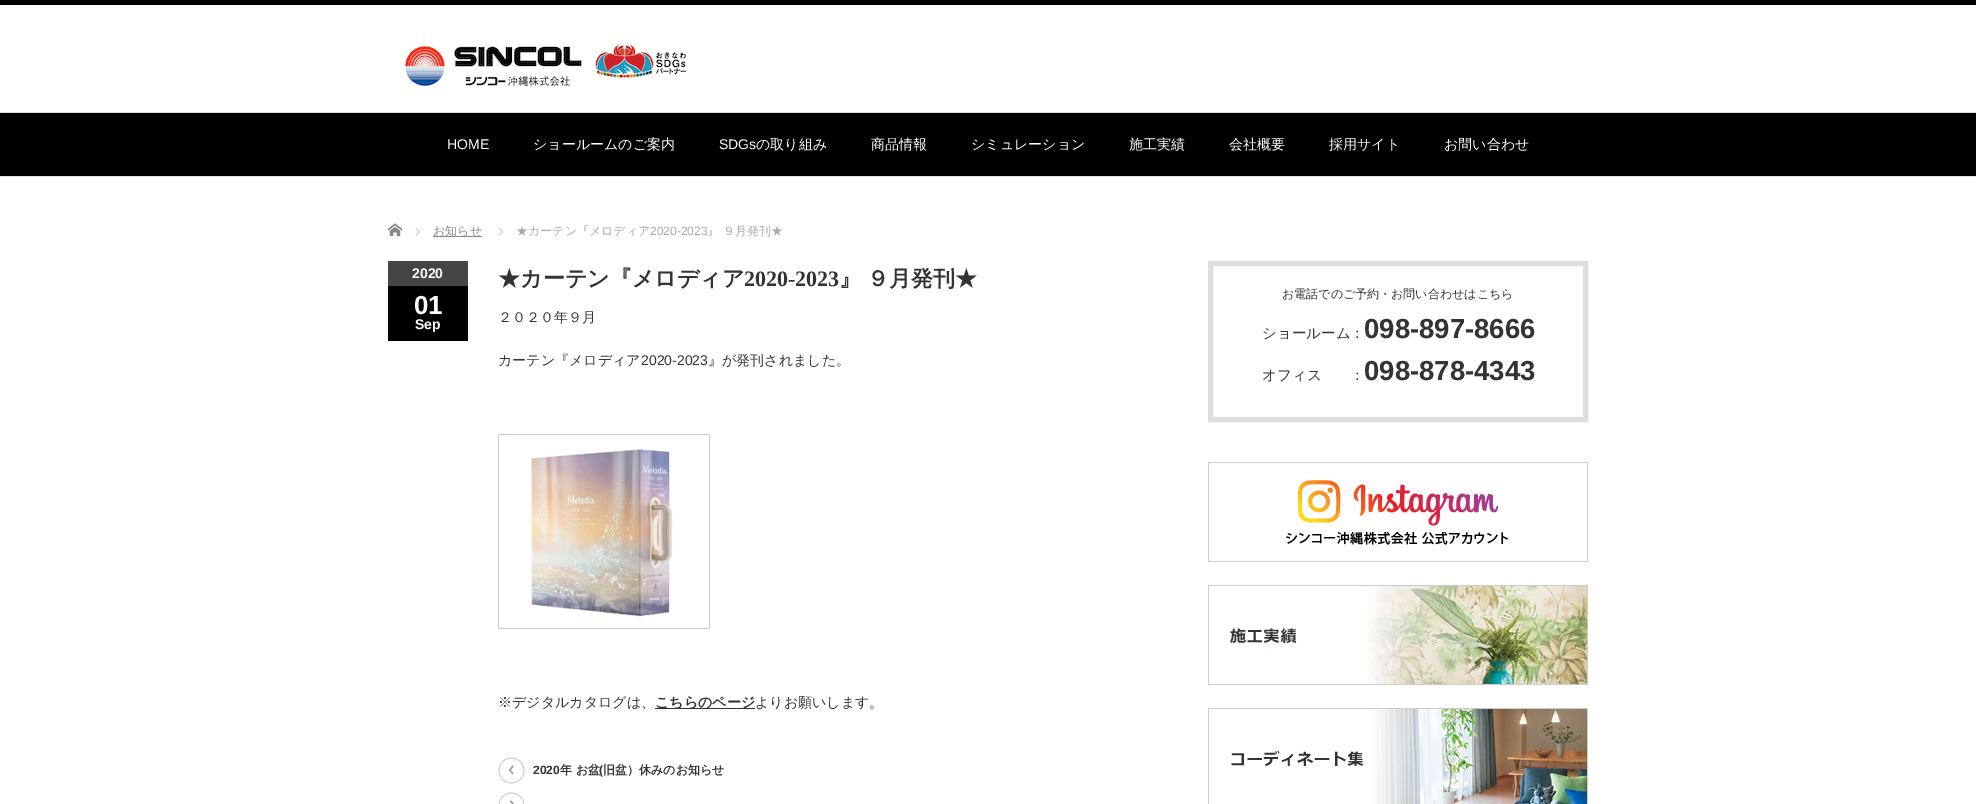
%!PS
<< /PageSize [1976 804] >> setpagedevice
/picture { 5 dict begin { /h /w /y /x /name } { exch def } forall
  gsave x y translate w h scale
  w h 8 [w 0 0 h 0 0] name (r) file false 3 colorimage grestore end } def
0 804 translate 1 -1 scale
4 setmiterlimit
1 setgray
0 0 1976 804 rectfill
0 setgray
0 0 1976 5 rectfill
0.867 setgray
0 176 1976 1 rectfill
(img1.rgb) 405 44 281 43 picture
0 setgray
0 113 1976 63 rectfill
0.867 setgray
0 112 1976 1 rectfill
/LiberationSans-Regular [14 0 0 -14 0 0] selectfont
1 setgray
447 149 moveto (HOME) show
/WenQuanYiZenHei-Medium [14 0 0 -14 0 0] selectfont
533 149 moveto (ショールームのご案内) show
/LiberationSans-Regular [14 0 0 -14 0 0] selectfont
719 149 moveto (SDGs) show
/WenQuanYiZenHei-Medium [14 0 0 -14 0 0] selectfont
756 149 moveto (の取り組み) show
871 149 moveto (商品情報) show
971 149 moveto (シミュレーション) show
1129 149 moveto (施工実績) show
1229 149 moveto (会社概要) show
1329 149 moveto (採用サイト) show
1444 149 moveto (お問い合わせ) show
(img2.rgb) 388 223 14 13 picture
(img3.rgb) 415 228 5 8 picture
0.533 setgray
433 236 49 1 rectfill
/WenQuanYiZenHei-Medium [12 0 0 -12 0 0] selectfont
433 235 moveto (お知らせ) show
(img3.rgb) 498 228 5 8 picture
0.667 setgray
516 235 moveto (★カーテン『メロディア) show
/LiberationSans-Regular [12 0 0 -12 0 0] selectfont
650 235 moveto (2020-2023) show
/WenQuanYiZenHei-Medium [12 0 0 -12 0 0] selectfont
707 235 moveto (』 ９月発刊★) show
0 setgray
388 286 80 55 rectfill
0.267 setgray
388 261 80 25 rectfill
/LiberationSans-Bold [14 0 0 -14 0 0] selectfont
1 setgray
412 278 moveto (2020) show
/LiberationSans-Bold [26 0 0 -26 0 0] selectfont
414 314 moveto (01) show
/LiberationSans-Bold [14 0 0 -14 0 0] selectfont
415 329 moveto (Sep) show
/WenQuanYiZenHei-Bold [22 0 0 -22 0 0] selectfont
0.2 setgray
498 286 moveto (★カーテン『メロディア) show
/LiberationSerif-Bold [22 0 0 -22 0 0] selectfont
744 286 moveto (2020-2023) show
/WenQuanYiZenHei-Bold [22 0 0 -22 0 0] selectfont
839 286 moveto -1 0 32 (』 ９月発刊★) widthshow
/WenQuanYiZenHei-Medium [14 0 0 -14 0 0] selectfont
498 322 moveto (２０２０年９月) show
498 365 moveto (カーテン『メロディア) show
/LiberationSans-Regular [14 0 0 -14 0 0] selectfont
641 365 moveto (2020-2023) show
/WenQuanYiZenHei-Medium [14 0 0 -14 0 0] selectfont
708 365 moveto (』が発刊されました。) show
(img4.rgb) 498 434 212 195 picture
498 707 moveto (※デジタルカタログは、) show
655 708 100 1 rectfill
/WenQuanYiZenHei-Bold [14 0 0 -14 0 0] selectfont
655 707 moveto (こちらのページ) show
/WenQuanYiZenHei-Medium [14 0 0 -14 0 0] selectfont
755 707 moveto (よりお願いします。) show
(img5.rgb) 498 757 27 27 picture
/LiberationSans-Bold [12 0 0 -12 0 0] selectfont
533 774 moveto (2020) show
/WenQuanYiZenHei-Bold [12 0 0 -12 0 0] selectfont
560 774 moveto (年 お盆) show
/LiberationSans-Bold [12 0 0 -12 0 0] selectfont
599 774 moveto (\() show
/WenQuanYiZenHei-Bold [12 0 0 -12 0 0] selectfont
603 774 moveto (旧盆）休みのお知らせ) show
(img6.rgb) 498 792 27 12 picture
0.867 setgray
5 setlinewidth
1210.5 263.5 375 156 rectstroke
/WenQuanYiZenHei-Medium [12 0 0 -12 0 0] selectfont
0.2 setgray
1282 298 moveto (お電話でのご予約・お問い合わせはこちら) show
/WenQuanYiZenHei-Medium [14.5 0 0 -14.5 0 0] selectfont
1262 338 moveto (ショールーム：) show
/LiberationSans-Bold [27.5 0 0 -27.5 0 0] selectfont
1364 338 moveto (098-897-8666) show
/WenQuanYiZenHei-Medium [14.5 0 0 -14.5 0 0] selectfont
1262 380 moveto (オフィス　　：) show
/LiberationSans-Bold [27.5 0 0 -27.5 0 0] selectfont
1364 380 moveto (098-878-4343) show
(img7.rgb) 1208 462 380 100 picture
(img8.rgb) 1208 585 380 100 picture
(img9.rgb) 1208 708 380 96 picture
showpage
